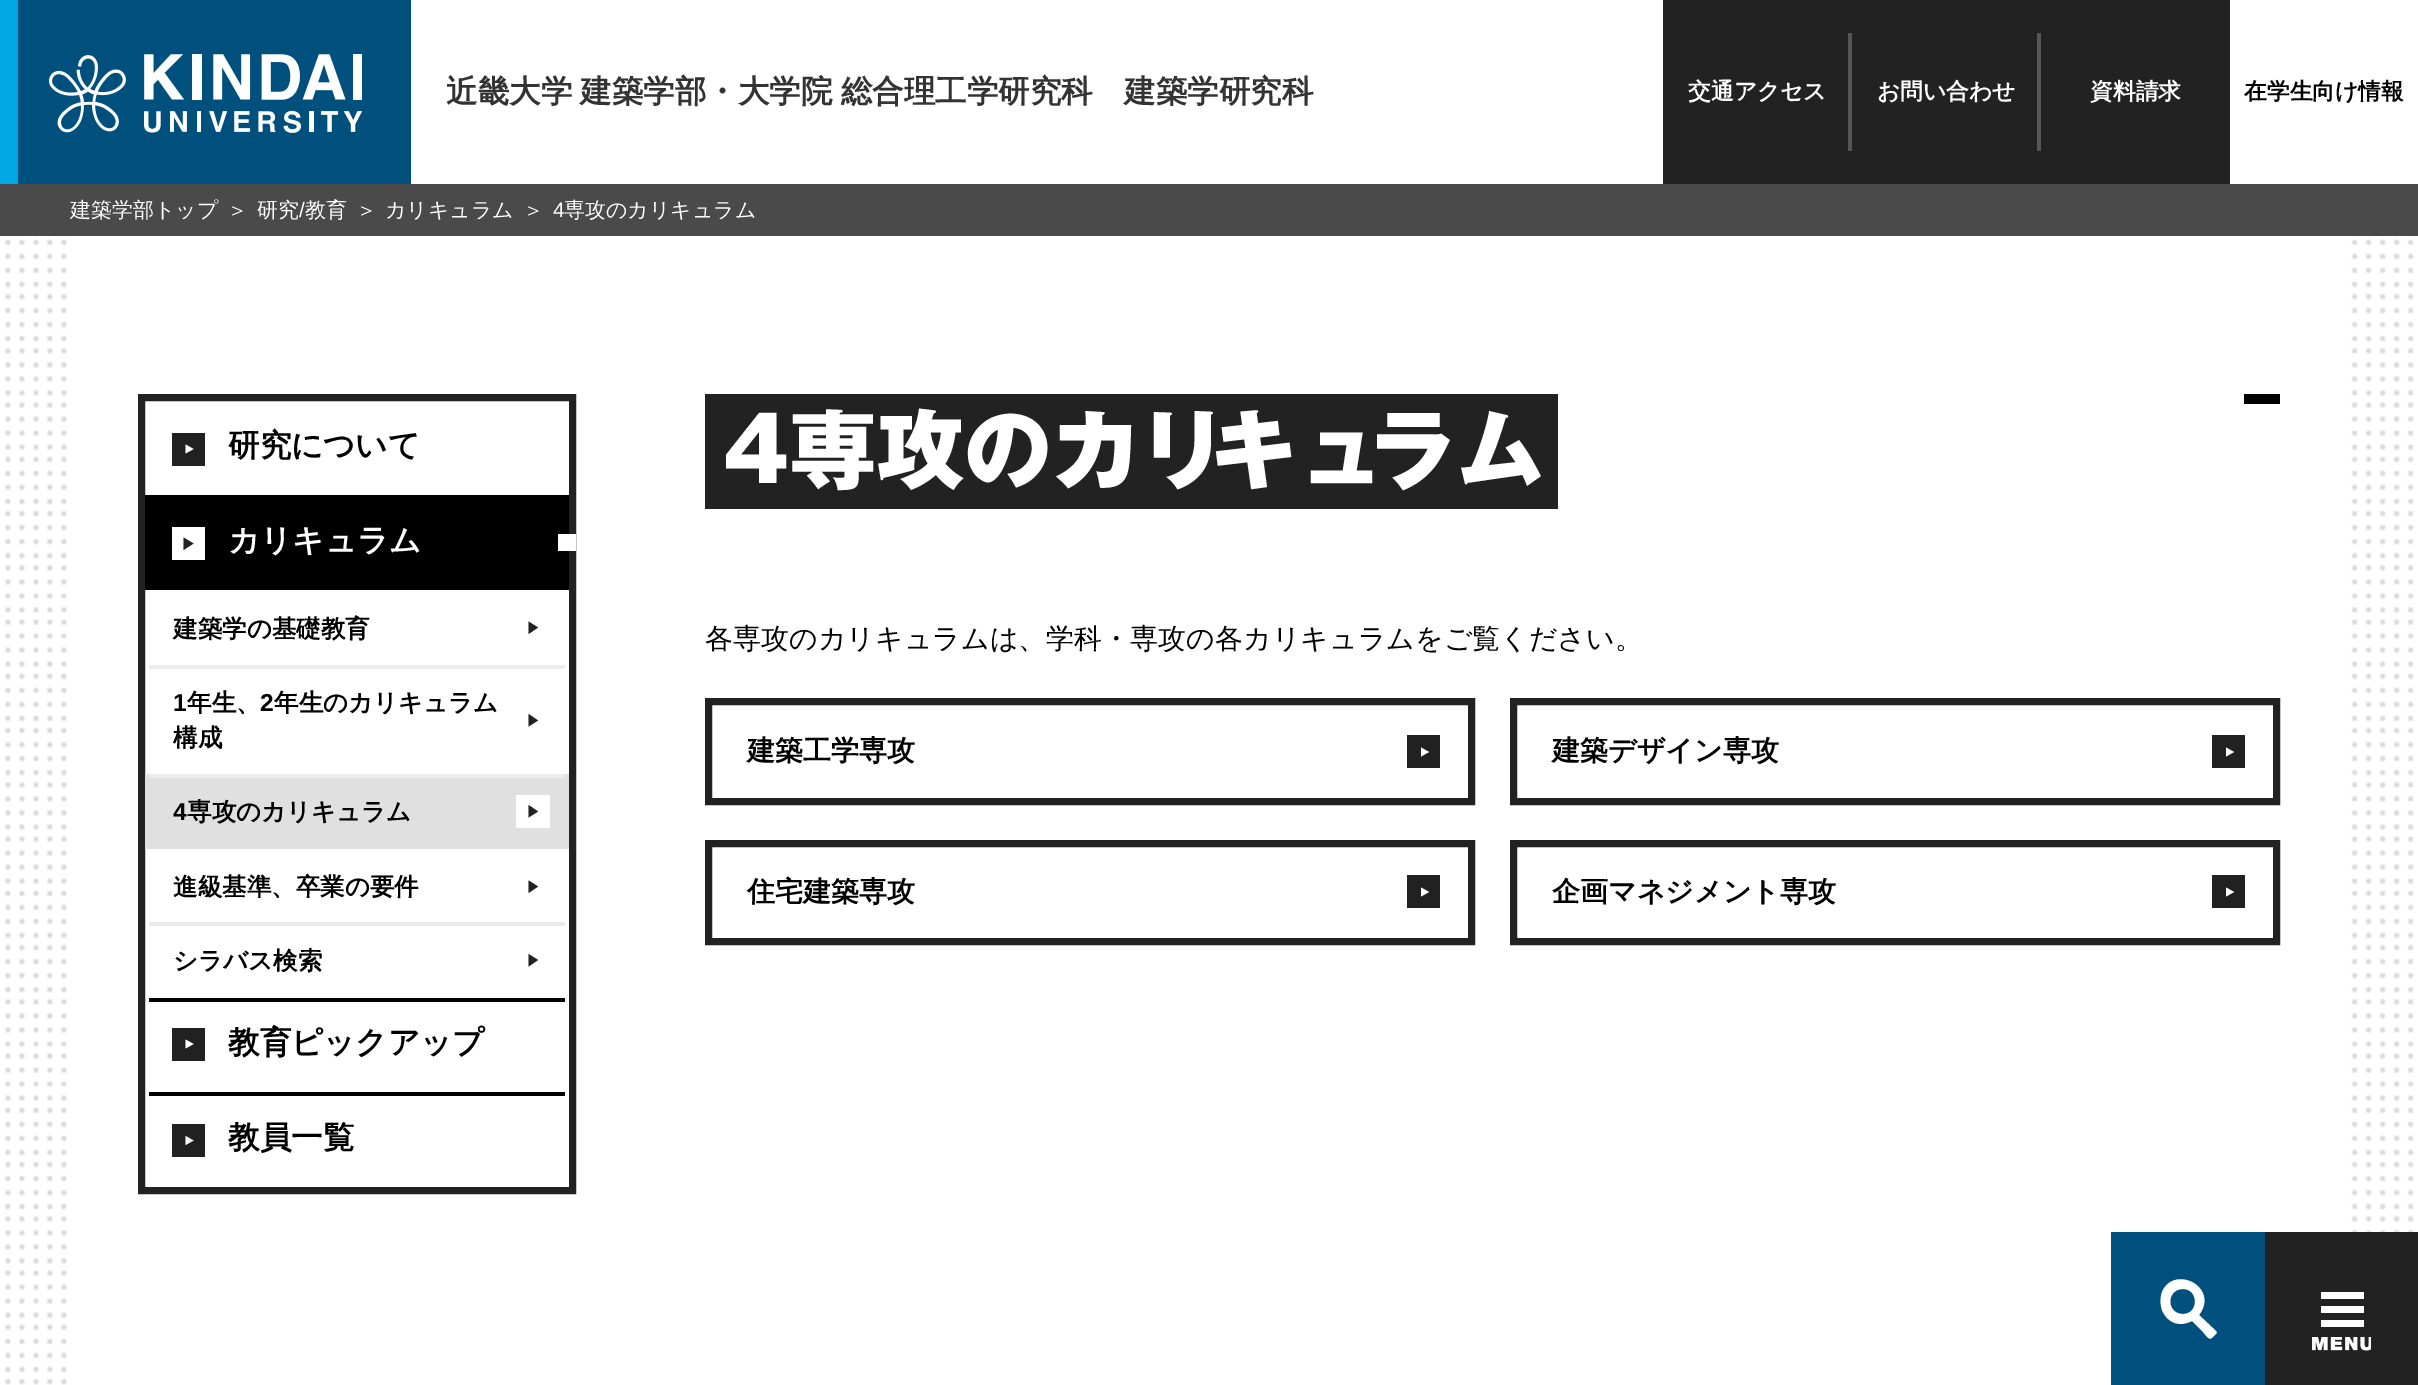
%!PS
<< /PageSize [2418 1385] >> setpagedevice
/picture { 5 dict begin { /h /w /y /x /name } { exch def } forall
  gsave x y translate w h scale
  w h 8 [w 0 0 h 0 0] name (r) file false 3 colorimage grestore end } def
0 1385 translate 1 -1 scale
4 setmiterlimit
1 setgray
0 0 2418 1385 rectfill
0 0.659 0.89 setrgbcolor
0 0 18 184 rectfill
0 0.314 0.494 setrgbcolor
18 0 393 184 rectfill
(img1.rgb) 49 54 313 79 picture
/WenQuanYiZenHei-Bold [31.5 0 0 -31.5 0 0] selectfont
0.2 setgray
446 102 moveto -1 0 32 (近畿大学 建築学部・大学院 総合理工学研究科　建築学研究科) widthshow
0.133 setgray
1663 0 567 184 rectfill
/WenQuanYiZenHei-Bold [22.75 0 0 -22.75 0 0] selectfont
1 setgray
1688 99 moveto (交通アクセス) show
0.337 setgray
1848 33 4 118 rectfill
1 setgray
1877 99 moveto (お問い合わせ) show
0.337 setgray
2037 33 4 118 rectfill
1 setgray
2090 99 moveto (資料請求) show
0 setgray
2244 99 moveto (在学生向け情報) show
0.29 setgray
0 184 2418 52 rectfill
/WenQuanYiZenHei-Medium [21 0 0 -21 0 0] selectfont
1 setgray
70 217 moveto (建築学部トップ) show
227 217 moveto (＞) show
257 217 moveto (研究) show
/LiberationSans-Regular [21 0 0 -21 0 0] selectfont
299 217 moveto (/) show
/WenQuanYiZenHei-Medium [21 0 0 -21 0 0] selectfont
305 217 moveto (教育) show
356 217 moveto (＞) show
385 217 moveto (カリキュラム) show
523 217 moveto (＞) show
/LiberationSans-Regular [21 0 0 -21 0 0] selectfont
553 217 moveto (4) show
/WenQuanYiZenHei-Medium [21 0 0 -21 0 0] selectfont
564 217 moveto (専攻のカリキュラム) show
(img2.rgb) 5 239 2409 1146 picture
0.133 setgray
7 setlinewidth
141.5 397.5 431 793 rectstroke
0.129 setgray
172 433 33 33 rectfill
1 setgray
newpath 193.5 449 moveto 185.5 453.5 lineto 185.5 444.5 lineto closepath fill
/WenQuanYiZenHei-Bold [31.5 0 0 -31.5 0 0] selectfont
0 setgray
228 456 moveto (研究について) show
145 495 424 95 rectfill
1 setgray
172 527 33 33 rectfill
0.129 setgray
newpath 193.5 543.5 moveto 183.5 550 lineto 183.5 537.5 lineto closepath fill
1 setgray
228 551 moveto (カリキュラム) show
558 534 18 17 rectfill
0.129 setgray
newpath 538 627.5 moveto 528.5 634 lineto 528.5 621.5 lineto closepath fill
/WenQuanYiZenHei-Bold [24.5 0 0 -24.5 0 0] selectfont
0 setgray
173 637 moveto (建築学の基礎教育) show
0.129 setgray
newpath 538 720.5 moveto 528.5 726.5 lineto 528.5 714 lineto closepath fill
0.925 setgray
149 665 416 4 rectfill
/LiberationSans-Bold [24.5 0 0 -24.5 0 0] selectfont
0 setgray
173 711 moveto (1) show
/WenQuanYiZenHei-Bold [24.5 0 0 -24.5 0 0] selectfont
187 711 moveto (年生、) show
/LiberationSans-Bold [24.5 0 0 -24.5 0 0] selectfont
260 711 moveto (2) show
/WenQuanYiZenHei-Bold [24.5 0 0 -24.5 0 0] selectfont
274 711 moveto (年生のカリキュラム) show
173 746 moveto (構成) show
0.878 setgray
145 774 424 75 rectfill
1 setgray
516 795 34 33 rectfill
0.129 setgray
newpath 538 811.5 moveto 528.5 817.5 lineto 528.5 805 lineto closepath fill
0.925 setgray
149 774 416 4 rectfill
/LiberationSans-Bold [24.5 0 0 -24.5 0 0] selectfont
0 setgray
173 820 moveto (4) show
/WenQuanYiZenHei-Bold [24.5 0 0 -24.5 0 0] selectfont
187 820 moveto (専攻のカリキュラム) show
0.129 setgray
newpath 538 886.5 moveto 528.5 893 lineto 528.5 880.5 lineto closepath fill
0 setgray
173 895 moveto (進級基準、卒業の要件) show
0.129 setgray
newpath 538 960 moveto 528.5 966.5 lineto 528.5 954 lineto closepath fill
0.925 setgray
149 922 416 4 rectfill
0 setgray
173 969 moveto (シラバス検索) show
0.129 setgray
172 1028 33 33 rectfill
1 setgray
newpath 193.5 1044 moveto 185.5 1048.5 lineto 185.5 1039.5 lineto closepath fill
0 setgray
149 998 416 4 rectfill
/WenQuanYiZenHei-Bold [31.5 0 0 -31.5 0 0] selectfont
228 1053 moveto (教育ピックアップ) show
0.129 setgray
172 1124 33 33 rectfill
1 setgray
newpath 193.5 1140.5 moveto 185.5 1145 lineto 185.5 1136 lineto closepath fill
0 setgray
149 1092 416 4 rectfill
228 1148 moveto (教員一覧) show
2244 394 36 10 rectfill
0.133 setgray
705 394 853 115 rectfill
/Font-ExtraBold [87.5 0 0 -87.5 0 0] selectfont
1 setgray
723 483 moveto (4専攻のカリ) show
1210 483 moveto (キュ) show
1369 483 moveto (ラム) show
/WenQuanYiZenHei-Medium [28 0 0 -28 0 0] selectfont
0 setgray
705 648 moveto (各専攻のカリキュラムは、学科・専攻の各カリキュラムをご覧ください。) show
0.133 setgray
708.5 701.5 763 100 rectstroke
/WenQuanYiZenHei-Bold [28 0 0 -28 0 0] selectfont
0 setgray
747 760 moveto (建築工学専攻) show
0.129 setgray
1407 735 33 33 rectfill
1 setgray
newpath 1429 752 moveto 1421 756.5 lineto 1421 747.5 lineto closepath fill
0.133 setgray
1513.5 701.5 763 100 rectstroke
0 setgray
1552 760 moveto (建築デザイン専攻) show
0.129 setgray
2212 735 33 33 rectfill
1 setgray
newpath 2234 752 moveto 2226 756.5 lineto 2226 747.5 lineto closepath fill
0.133 setgray
708.5 843.5 763 98 rectstroke
0 setgray
747 901 moveto (住宅建築専攻) show
0.129 setgray
1407 875 33 33 rectfill
1 setgray
newpath 1429 892 moveto 1421 896.5 lineto 1421 887.5 lineto closepath fill
0.133 setgray
1513.5 843.5 763 98 rectstroke
0 setgray
1552 901 moveto (企画マネジメント専攻) show
0.129 setgray
2212 875 33 33 rectfill
1 setgray
newpath 2234 892 moveto 2226 896.5 lineto 2226 887.5 lineto closepath fill
0 0.314 0.494 setrgbcolor
2111 1232 154 153 rectfill
1 setgray
newpath 2216 1334 moveto 2209 1341 2210 1340 2203 1332 curveto 2192 1321 lineto 2180 1327 2168 1324 2162 1310 curveto 2160 1304 2160 1298 2162 1292 curveto 2174 1264 2220 1287 2199 1315 curveto 2216 1331 lineto 2217 1332 2217 1333 2216 1334 curveto closepath 2183 1289 moveto 2166 1289 2166 1314 2183 1314 curveto 2199 1314 2199 1289 2183 1289 curveto closepath eofill
0.133 setgray
2265 1232 153 153 rectfill
1 setgray
2321 1292 43 7 rectfill
2321 1306 43 7 rectfill
2321 1320 43 7 rectfill
(img3.rgb) 2312 1337 59 14 picture
showpage
